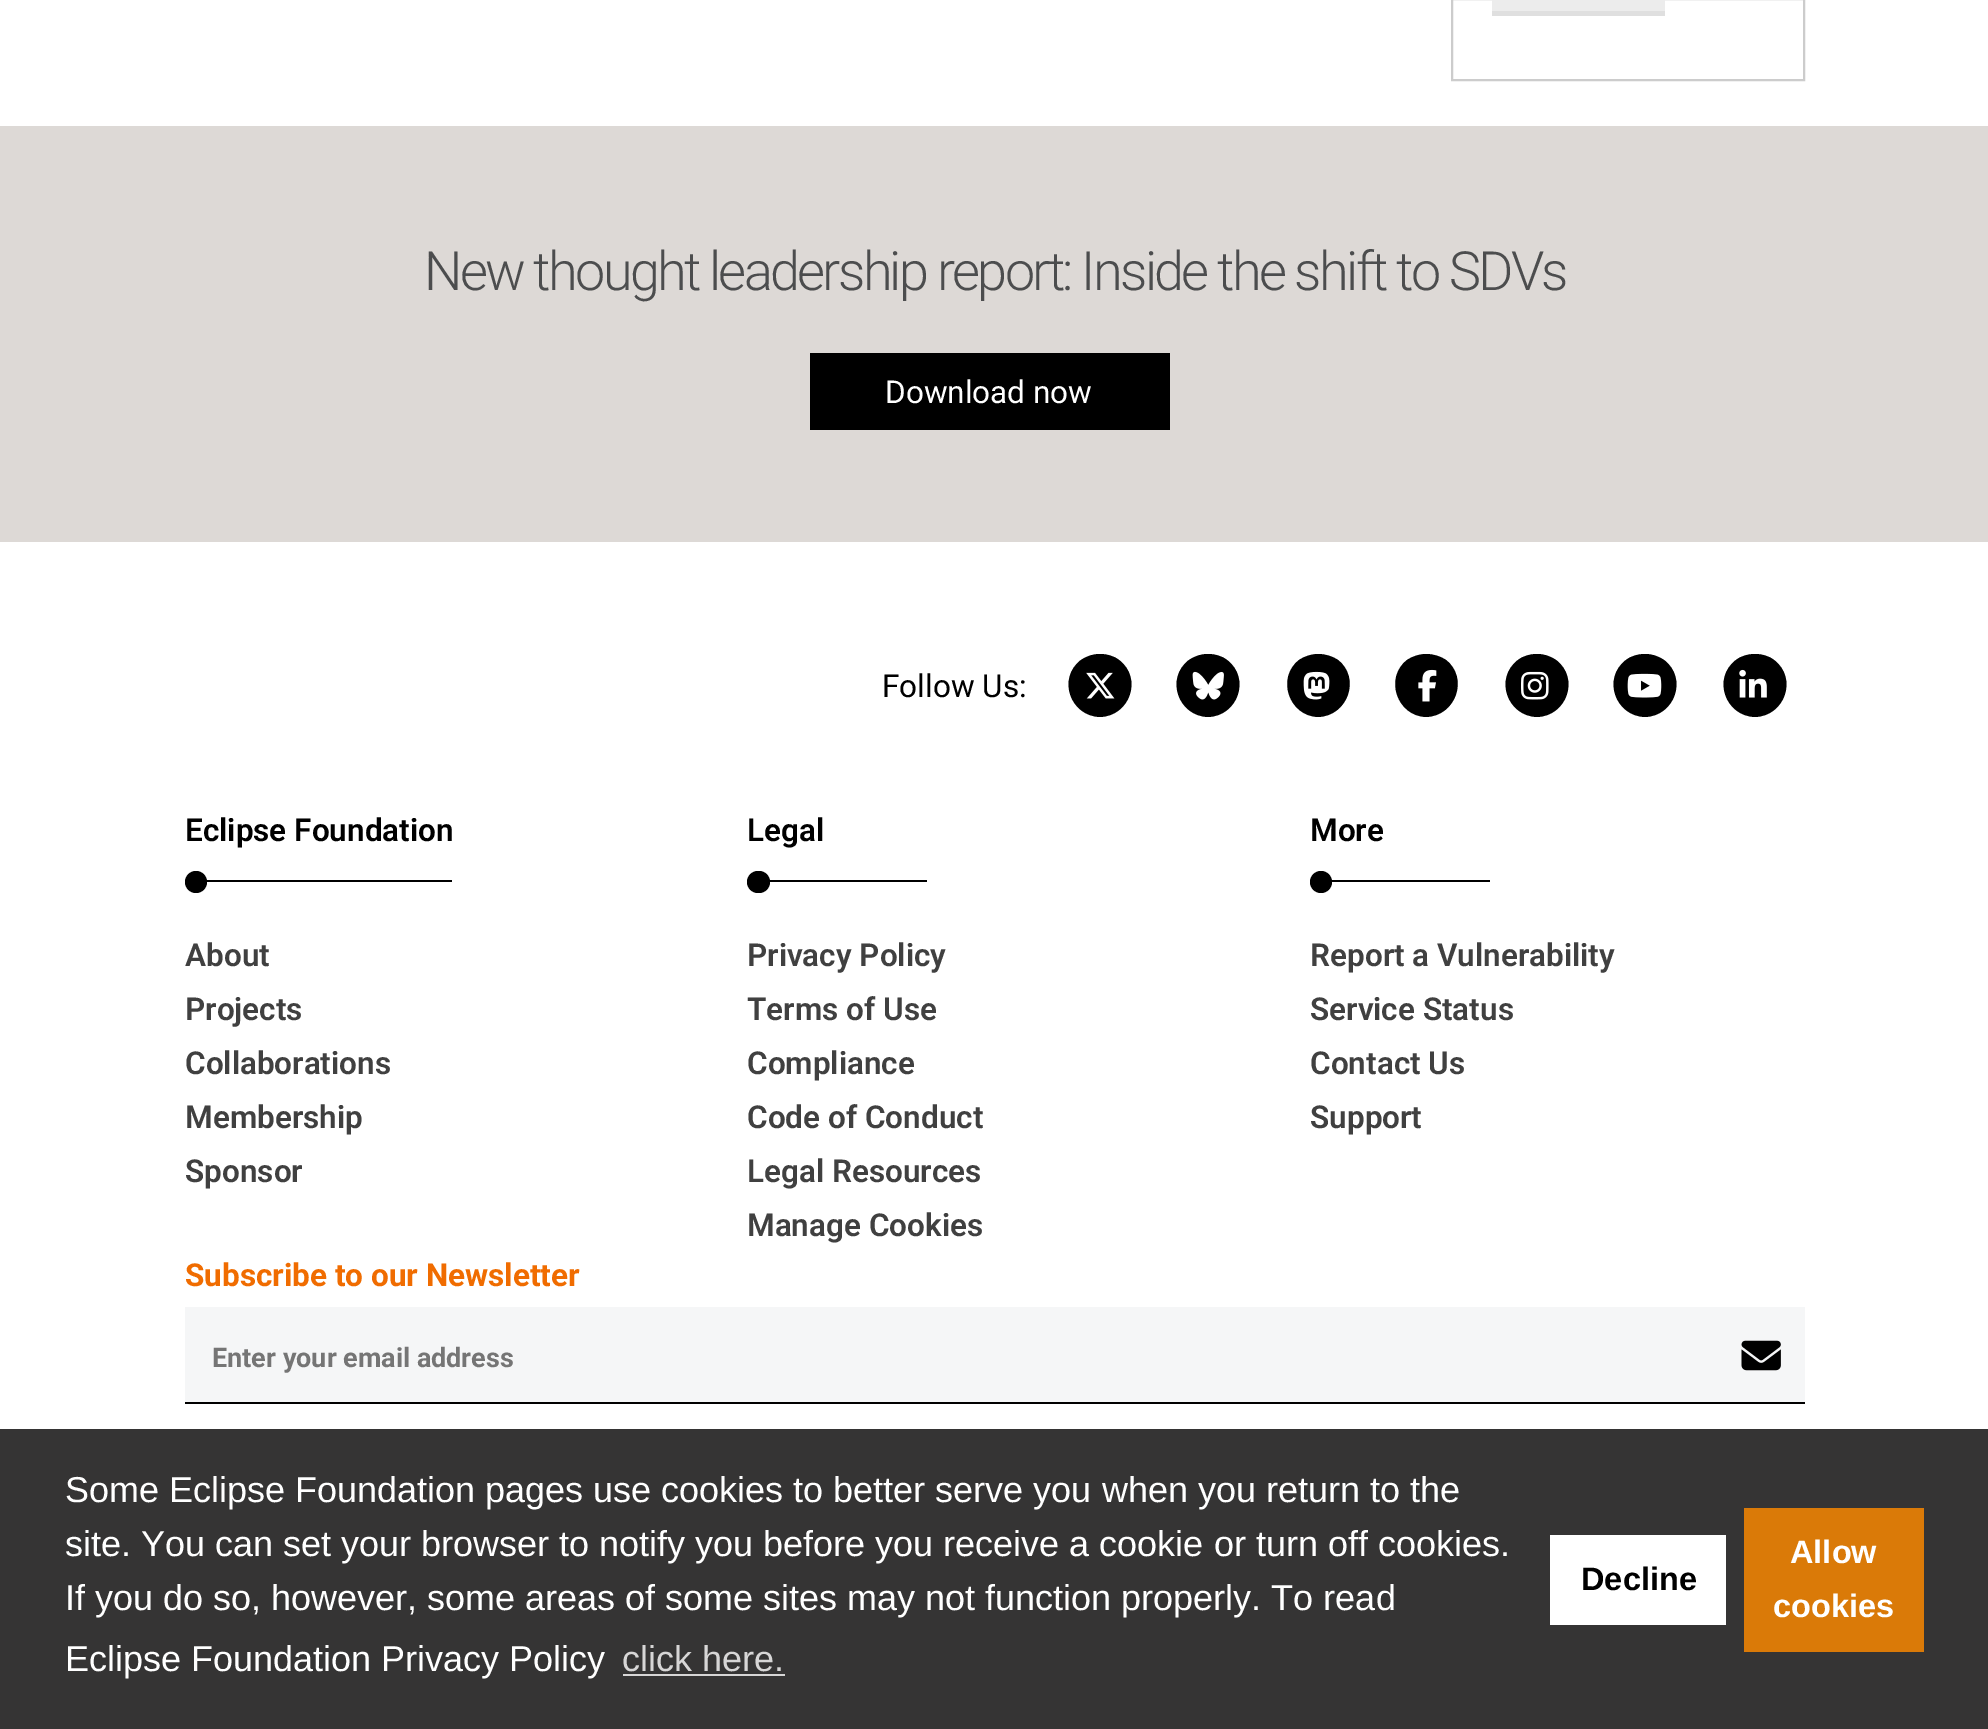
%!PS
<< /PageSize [1988 1729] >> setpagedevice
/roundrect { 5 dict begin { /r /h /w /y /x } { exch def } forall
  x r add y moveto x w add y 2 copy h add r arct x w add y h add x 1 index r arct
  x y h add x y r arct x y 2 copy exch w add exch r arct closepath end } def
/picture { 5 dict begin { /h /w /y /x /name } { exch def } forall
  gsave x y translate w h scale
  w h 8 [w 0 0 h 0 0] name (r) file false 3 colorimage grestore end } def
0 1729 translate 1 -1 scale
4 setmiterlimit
1 setgray
0 0 1988 1729 rectfill
0.8 setgray
2 setlinewidth
1452 -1 352 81 rectstroke
0.925 setgray
1492 0 173 11 rectfill
0.875 setgray
1492 11 173 5 rectfill
0.867 0.851 0.839 setrgbcolor
0 126 1988 416 rectfill
/Roboto-Light [54 0 0 -54 0 0] selectfont
0.298 0.302 0.306 setrgbcolor
424 290 moveto -2.7 0 (New thought leadership report: Inside the shift to SDVs) ashow
0 setgray
810 353 360 77 rectfill
/Roboto-Regular [31.5 0 0 -31.5 0 0] selectfont
1 setgray
885 403 moveto (Download now) show
0 setgray
882 697 moveto (Follow Us:) show
newpath 1100 717 moveto 1130 716 1143 678 1119 660 curveto 1114 656 1107 654 1100 654 curveto 1093 654 1087 656 1081 660 curveto 1057 678 1070 716 1100 717 curveto closepath fill
(img1.rgb) 1086 672 29 27 picture
newpath 1208 717 moveto 1238 716 1251 678 1227 660 curveto 1222 656 1215 654 1208 654 curveto 1201 654 1195 656 1189 660 curveto 1165 678 1178 716 1208 717 curveto closepath fill
(img2.rgb) 1192 671 32 29 picture
newpath 1318 717 moveto 1348 716 1361 678 1338 660 curveto 1332 656 1325 654 1318 654 curveto 1312 654 1305 656 1299 660 curveto 1276 678 1289 716 1318 717 curveto closepath fill
(img3.rgb) 1303 671 27 29 picture
newpath 1426 717 moveto 1456 716 1469 678 1446 660 curveto 1440 656 1433 654 1426 654 curveto 1420 654 1413 656 1407 660 curveto 1384 678 1397 716 1426 717 curveto closepath fill
(img4.rgb) 1418 669 19 33 picture
newpath 1537 717 moveto 1567 716 1580 678 1556 660 curveto 1550 656 1544 654 1537 654 curveto 1530 654 1523 656 1518 660 curveto 1494 678 1507 716 1537 717 curveto closepath fill
(img5.rgb) 1521 671 28 29 picture
newpath 1645 717 moveto 1675 716 1688 678 1664 660 curveto 1658 656 1652 654 1645 654 curveto 1638 654 1631 656 1626 660 curveto 1602 678 1615 716 1645 717 curveto closepath fill
(img6.rgb) 1627 673 35 25 picture
newpath 1755 717 moveto 1785 716 1798 678 1774 660 curveto 1769 656 1762 654 1755 654 curveto 1748 654 1741 656 1736 660 curveto 1712 678 1725 716 1755 717 curveto closepath fill
(img7.rgb) 1739 669 28 29 picture
/Roboto-SemiBold [31.5 0 0 -31.5 0 0] selectfont
185 841 moveto (Eclipse Foundation) show
185 880 267 2 rectfill
newpath 196 882 11 0 360 arc closepath fill
0.251 setgray
185 966 moveto (About) show
185 1020 moveto (Projects) show
185 1074 moveto (Collaborations) show
185 1128 moveto (Membership) show
185 1182 moveto (Sponsor) show
0 setgray
747 841 moveto (Legal) show
747 880 180 2 rectfill
747 871 23 22 11 roundrect fill
0.251 setgray
747 966 moveto (Privacy Policy) show
747 1020 moveto (Terms of Use) show
747 1074 moveto (Compliance) show
747 1128 moveto (Code of Conduct) show
747 1182 moveto (Legal Resources) show
747 1236 moveto (Manage Cookies) show
0 setgray
1310 841 moveto (More) show
1310 880 180 2 rectfill
newpath 1321 882 11 0 360 arc closepath fill
0.251 setgray
1310 966 moveto (Report a Vulnerability) show
1310 1020 moveto (Service Status) show
1310 1074 moveto (Contact Us) show
1310 1128 moveto (Support) show
/Roboto-Bold [31.5 0 0 -31.5 0 0] selectfont
0.941 0.424 0 setrgbcolor
185 1286 moveto (Subscribe to our Newsletter) show
0.961 0.965 0.969 setrgbcolor
185 1307 1620 95 rectfill
0 setgray
185 1402 1620 2 rectfill
/Roboto-Bold [27 0 0 -27 0 0] selectfont
0.459 setgray
212 1367 moveto (Enter your email address) show
(img8.rgb) 1741 1340 40 31 picture
0.208 0.204 0.204 setrgbcolor
0 1429 1988 300 rectfill
/LiberationSans-Regular [36 0 0 -36 0 0] selectfont
1 setgray
65 1502 moveto (Some Eclipse Foundation pages use cookies to better serve you when you return to the) show
65 1556 moveto (site. You can set your browser to notify you before you receive a cookie or turn off cookies.) show
65 1610 moveto (If you do so, however, some areas of some sites may not function properly. To read) show
65 1671 moveto (Eclipse Foundation Privacy Policy) show
0.843 0.839 0.839 setrgbcolor
622 1671 moveto (click here.) show
623 1674 162 2 rectfill
1 setgray
1550 1535 176 90 rectfill
/LiberationSans-Bold [32.5 0 0 -32.5 0 0] selectfont
0 setgray
1581 1590 moveto (Decline) show
0.855 0.478 0.031 setrgbcolor
1744 1508 180 144 rectfill
1 setgray
1790 1563 moveto (Allow) show
1773 1617 moveto (cookies) show
showpage
